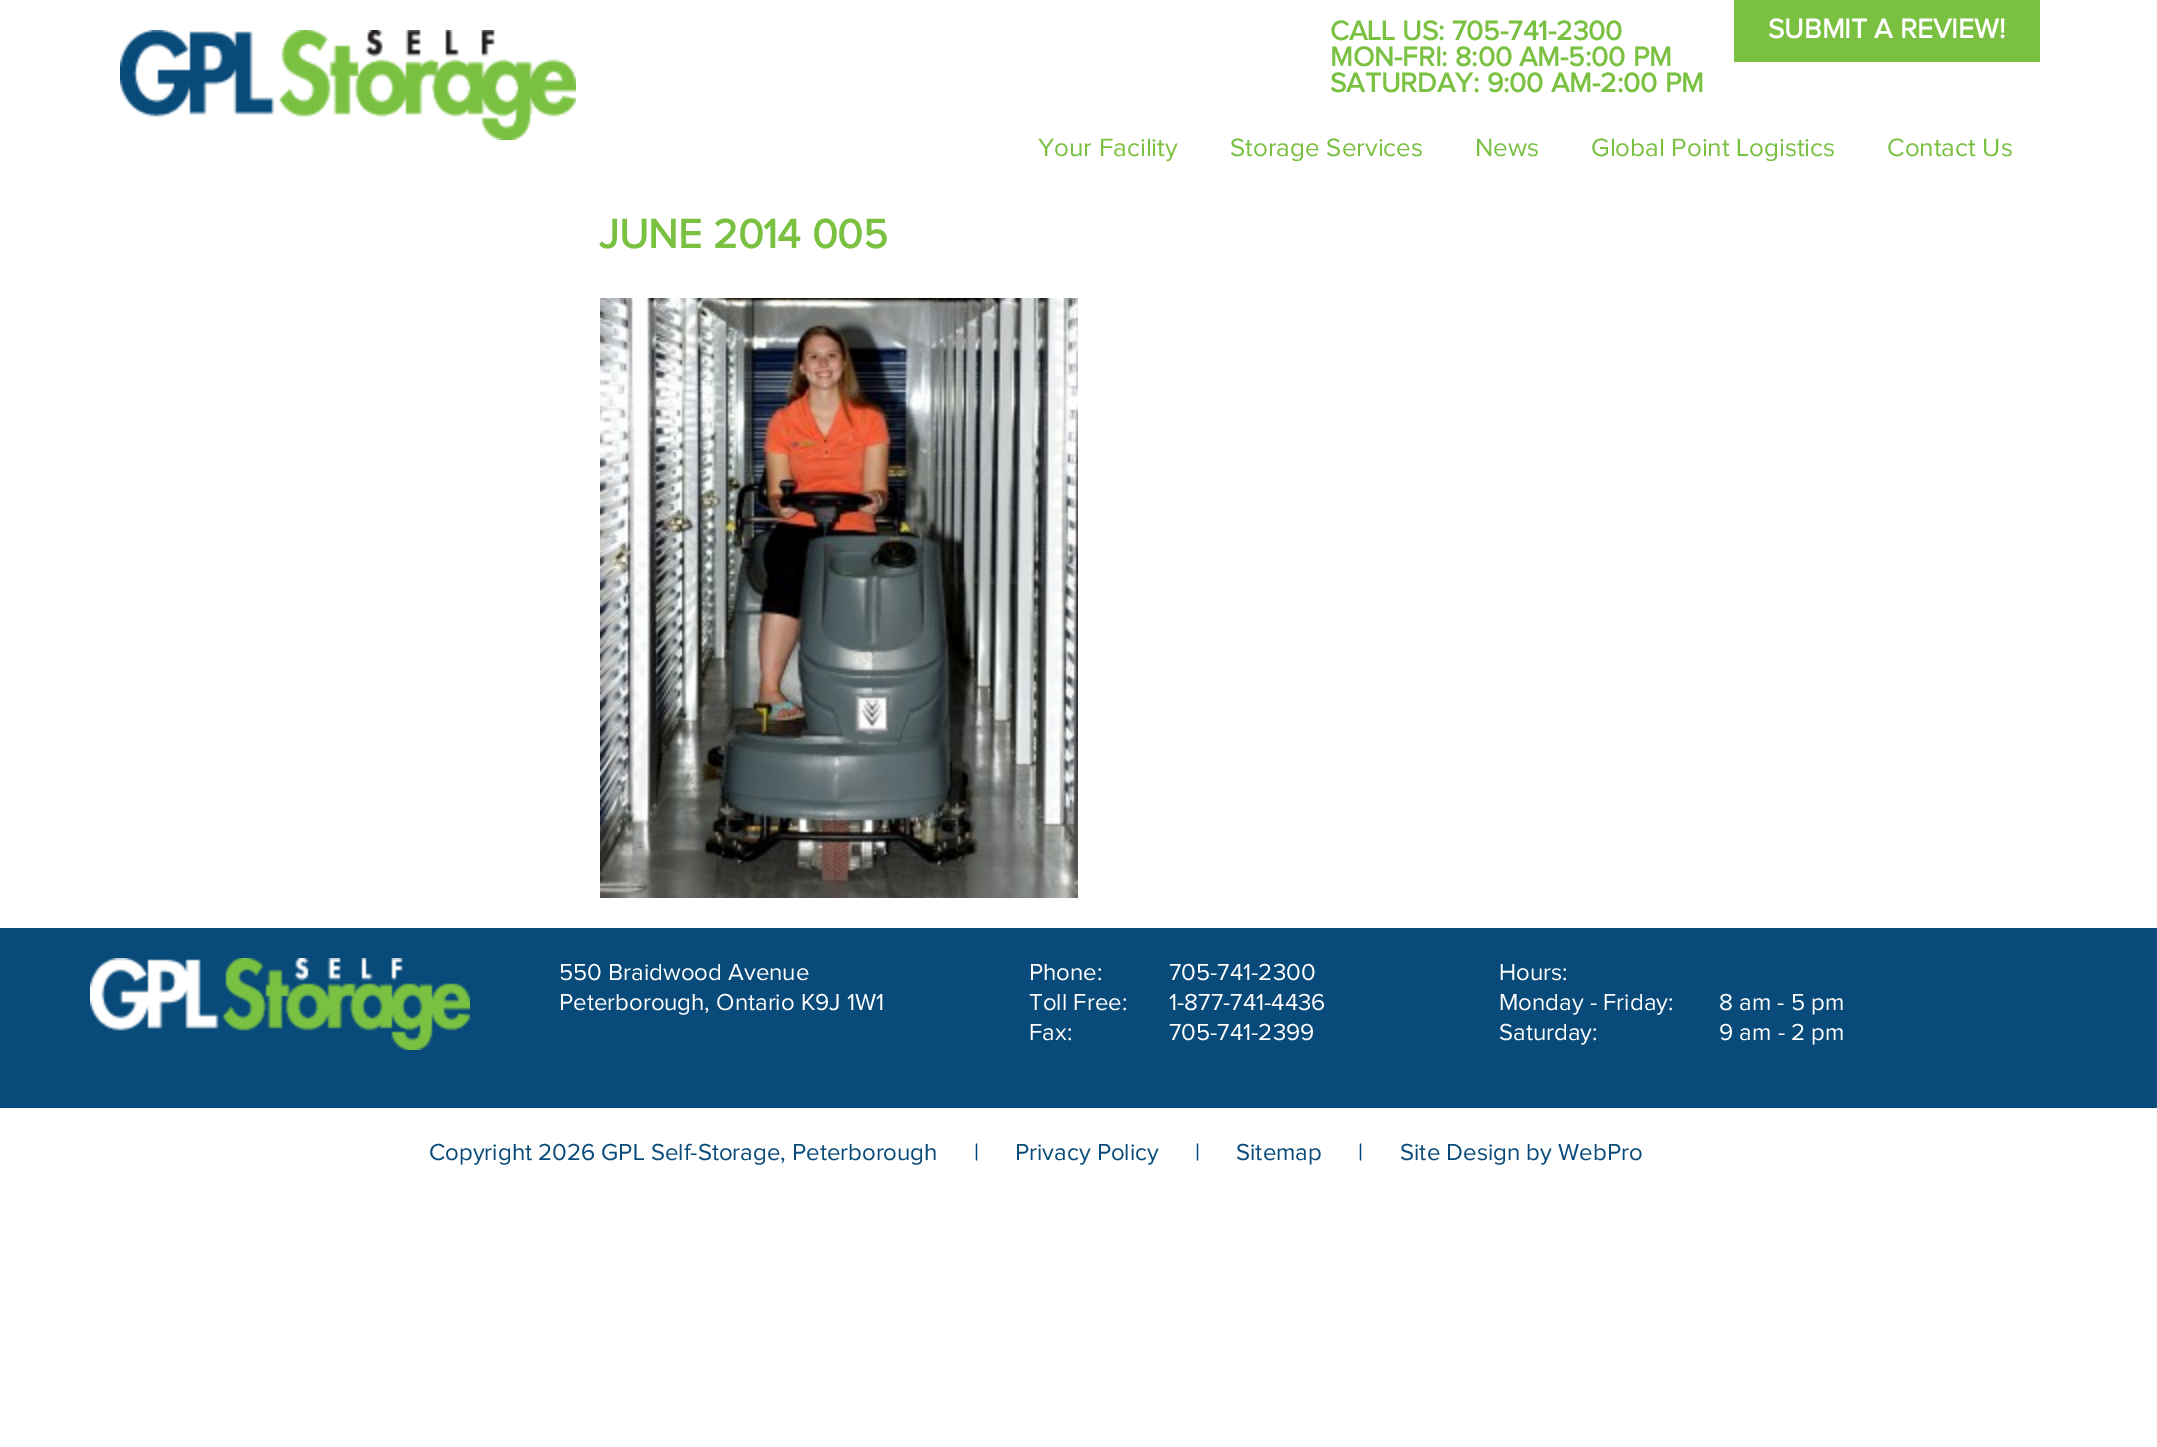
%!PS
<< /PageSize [2157 1447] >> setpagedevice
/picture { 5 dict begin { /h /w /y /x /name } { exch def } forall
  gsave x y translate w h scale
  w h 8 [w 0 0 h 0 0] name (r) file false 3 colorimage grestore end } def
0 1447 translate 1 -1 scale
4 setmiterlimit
1 setgray
0 0 2157 1447 rectfill
(img1.rgb) 120 30 456 110 picture
/ProximaNova-Bold [28 0 0 -28 0 0] selectfont
0.478 0.757 0.259 setrgbcolor
1330 40 moveto (CALL US: 705-741-2300) show
1330 66 moveto (MON-FRI: 8:00 AM-5:00 PM) show
1330 92 moveto (SATURDAY: 9:00 AM-2:00 PM) show
1734 0 306 62 rectfill
1 setgray
1768 38 moveto (SUBMIT A REVIEW!) show
/ProximaNova-Regular [26 0 0 -26 0 0] selectfont
0.478 0.757 0.259 setrgbcolor
1038 156 moveto (Your Facility) show
1230 156 moveto (Storage Services) show
1475 156 moveto (News) show
1591 156 moveto (Global Point Logistics) show
1887 156 moveto (Contact Us) show
/ProximaNova-Bold [42 0 0 -42 0 0] selectfont
599 248 moveto (JUNE 2014 005) show
(img2.rgb) 600 298 478 600 picture
0.031 0.29 0.475 setrgbcolor
0 928 2157 180 rectfill
(img3.rgb) 90 958 380 92 picture
/ProximaNova-Regular [24 0 0 -24 0 0] selectfont
1 setgray
559 980 moveto (550 Braidwood Avenue) show
559 1010 moveto (Peterborough, Ontario K9J 1W1) show
1029 980 moveto (Phone:) show
1169 980 moveto (705-741-2300) show
1029 1010 moveto (Toll Free:) show
1169 1010 moveto (1-877-741-4436) show
1029 1040 moveto (Fax:) show
1169 1040 moveto (705-741-2399) show
1499 980 moveto (Hours:) show
1499 1010 moveto (Monday - Friday:) show
1719 1010 moveto (8 am - 5 pm) show
1499 1040 moveto (Saturday:) show
1719 1040 moveto (9 am - 2 pm) show
0.031 0.29 0.475 setrgbcolor
429 1160 moveto (Copyright 2026 GPL Self-Storage, Peterborough) show
974 1160 moveto (|) show
1015 1160 moveto (Privacy Policy) show
1195 1160 moveto (|) show
1236 1160 moveto (Sitemap) show
1358 1160 moveto (|) show
1400 1160 moveto (Site Design by WebPro) show
showpage
